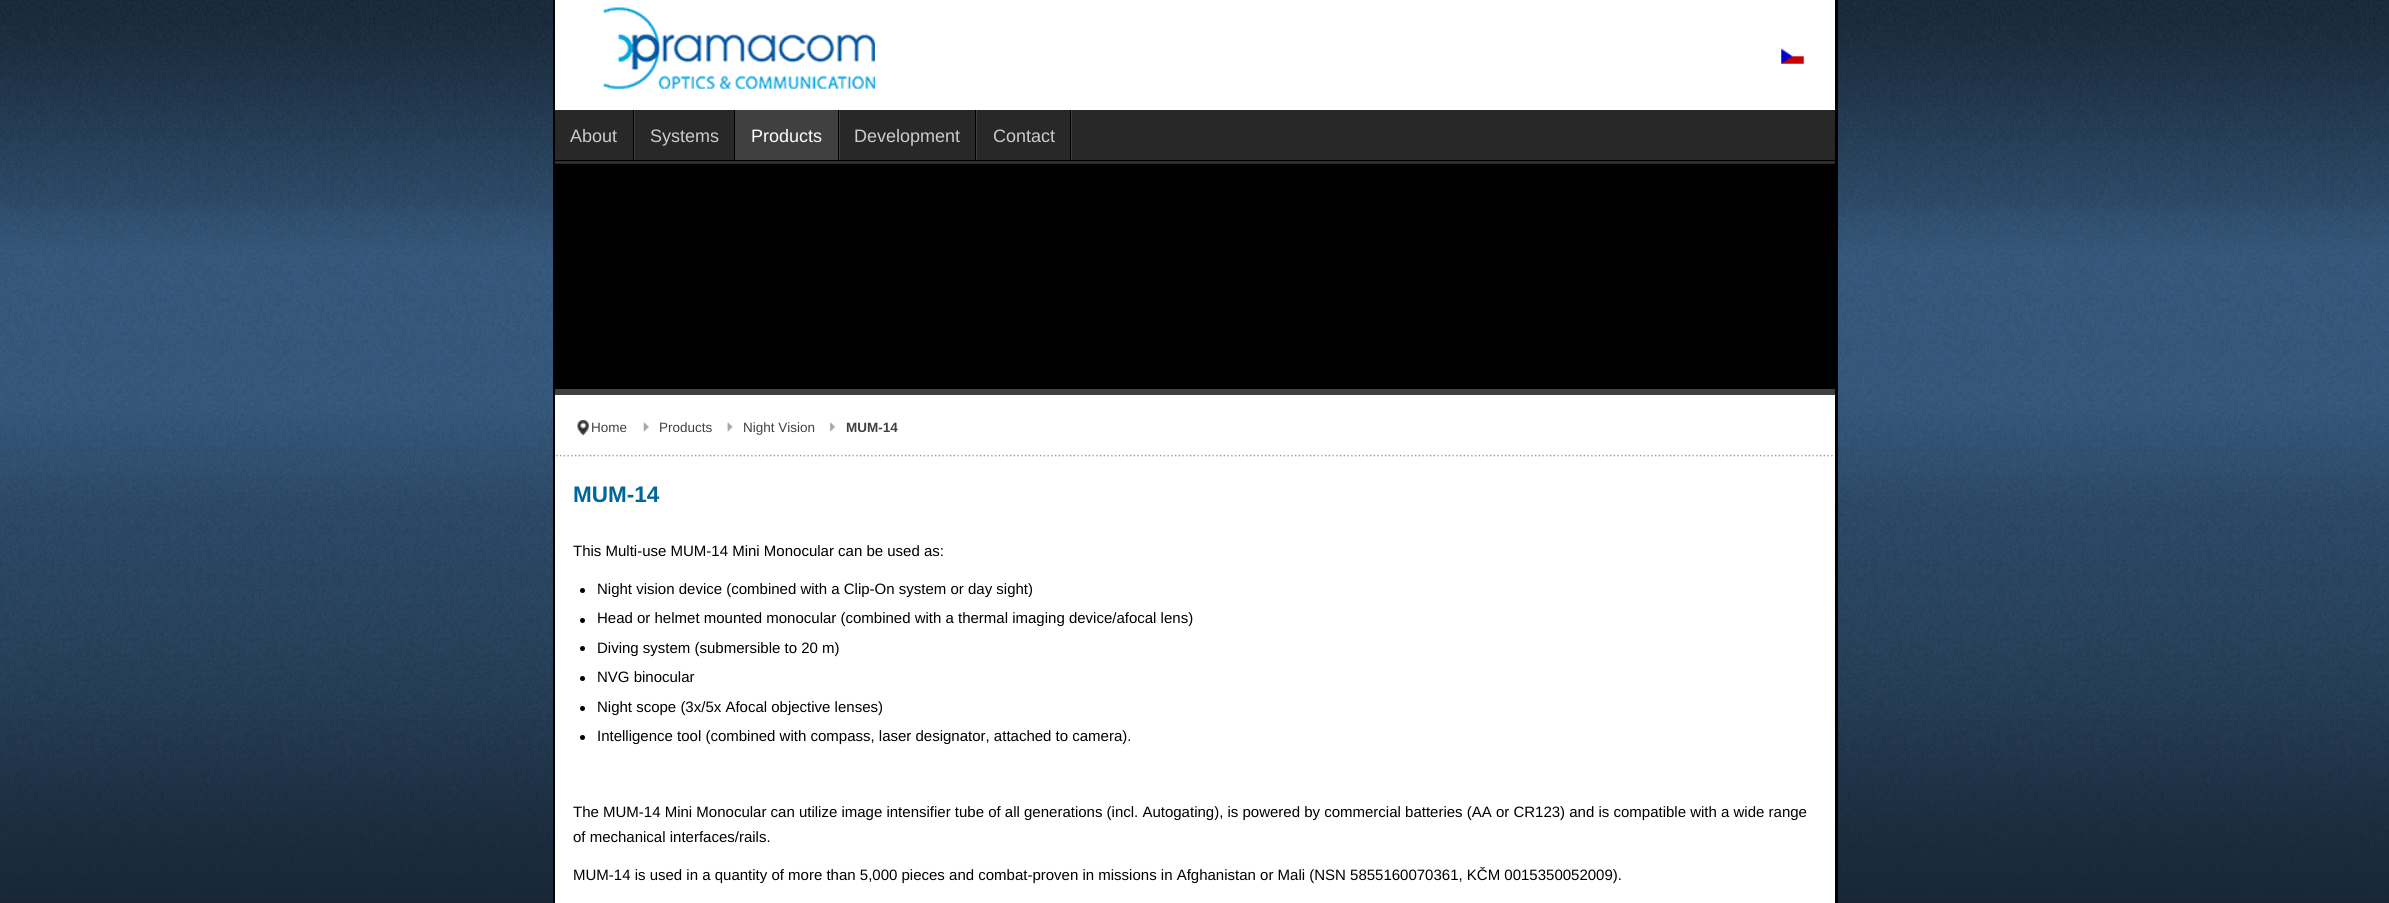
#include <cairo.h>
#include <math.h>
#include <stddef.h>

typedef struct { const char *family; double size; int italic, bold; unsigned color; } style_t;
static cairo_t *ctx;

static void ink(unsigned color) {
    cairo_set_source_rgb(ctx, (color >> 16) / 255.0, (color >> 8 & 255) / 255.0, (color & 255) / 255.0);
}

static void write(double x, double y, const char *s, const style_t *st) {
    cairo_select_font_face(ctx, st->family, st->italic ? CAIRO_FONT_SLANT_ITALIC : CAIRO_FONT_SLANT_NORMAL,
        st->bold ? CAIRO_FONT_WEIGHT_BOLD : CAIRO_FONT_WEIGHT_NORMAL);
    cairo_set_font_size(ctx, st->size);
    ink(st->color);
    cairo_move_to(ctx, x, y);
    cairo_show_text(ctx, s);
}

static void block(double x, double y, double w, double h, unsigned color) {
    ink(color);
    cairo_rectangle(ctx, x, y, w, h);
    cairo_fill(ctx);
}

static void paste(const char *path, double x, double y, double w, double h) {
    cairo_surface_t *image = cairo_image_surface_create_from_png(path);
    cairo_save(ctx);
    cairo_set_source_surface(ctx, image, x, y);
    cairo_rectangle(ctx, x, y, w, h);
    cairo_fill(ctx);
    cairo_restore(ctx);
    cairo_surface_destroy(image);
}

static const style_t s1 = {"Liberation Sans", 18, 0, 0, 0xcccccc};
static const style_t s2 = {"Liberation Sans", 18, 0, 0, 0xffffff};
static const style_t s3 = {"Liberation Sans", 13.5, 0, 0, 0x404040};
static const style_t s4 = {"Liberation Sans", 13.5, 0, 1, 0x404040};
static const style_t s5 = {"Liberation Sans", 22.5, 0, 1, 0x006699};
static const style_t s6 = {"Liberation Sans", 15, 0, 0, 0x000000};

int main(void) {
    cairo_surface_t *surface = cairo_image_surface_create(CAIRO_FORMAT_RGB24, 2389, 903);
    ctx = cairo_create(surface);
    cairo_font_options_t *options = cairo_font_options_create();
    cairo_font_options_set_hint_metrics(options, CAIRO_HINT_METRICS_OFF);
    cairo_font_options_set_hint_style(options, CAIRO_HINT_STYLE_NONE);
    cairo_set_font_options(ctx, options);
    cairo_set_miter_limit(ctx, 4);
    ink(0x172534);
    cairo_paint(ctx);
    paste("pic1.png", 0, 0, 2389, 901);
    block(1835, 0, 3, 903, 0x000000);
    block(553, 0, 2, 903, 0x000000);
    block(555, 0, 1280, 903, 0xffffff);
    paste("pic2.png", 603, 7, 272, 82);
    paste("pic3.png", 1781, 48, 23, 16);
    block(555, 110, 1280, 50, 0x282828);
    block(634, 110, 1, 50, 0x404040);
    block(633, 110, 1, 50, 0x000000);
    write(570, 142, "About", &s1);
    block(735, 110, 103, 50, 0x404040);
    block(734, 110, 1, 50, 0x000000);
    write(650, 142, "Systems", &s1);
    block(839, 110, 1, 50, 0x404040);
    block(838, 110, 1, 50, 0x000000);
    write(751, 142, "Products", &s2);
    block(976, 110, 1, 50, 0x404040);
    block(975, 110, 1, 50, 0x000000);
    write(854, 142, "Development", &s1);
    block(1071, 110, 1, 50, 0x404040);
    block(1070, 110, 1, 50, 0x000000);
    write(993, 142, "Contact", &s1);
    paste("pic4.png", 555, 160, 1280, 4);
    block(555, 389, 1280, 6, 0x404040);
    block(555, 164, 1280, 225, 0x000000);
    paste("pic5.png", 556, 454, 1279, 3);
    paste("pic6.png", 577, 420, 12, 16);
    paste("pic7.png", 643, 422, 6, 10);
    write(591, 432, "Home", &s3);
    paste("pic8.png", 727, 422, 6, 10);
    write(659, 432, "Products", &s3);
    paste("pic9.png", 830, 422, 6, 10);
    write(743, 432, "Night Vision", &s3);
    write(846, 432, "MUM-14", &s4);
    write(573, 502, "MUM-14", &s5);
    write(573, 556, "This Multi-use MUM-14 Mini Monocular can be used as:", &s6);
    cairo_new_path(ctx);
    cairo_arc(ctx, 582.5, 590.5, 2.5, 0, 2 * M_PI);
    cairo_fill(ctx);
    write(597, 594, "Night vision device (combined with a Clip-On system or day sight)", &s6);
    cairo_new_path(ctx);
    cairo_arc(ctx, 582.5, 620.5, 2.5, 0, 2 * M_PI);
    cairo_fill(ctx);
    write(597, 623, "Head or helmet mounted monocular (combined with a thermal imaging device/afocal lens)", &s6);
    cairo_new_path(ctx);
    cairo_arc(ctx, 582.5, 648.5, 2.5, 0, 2 * M_PI);
    cairo_fill(ctx);
    write(597, 653, "Diving system (submersible to 20 m)", &s6);
    cairo_new_path(ctx);
    cairo_arc(ctx, 582.5, 678.5, 2.5, 0, 2 * M_PI);
    cairo_fill(ctx);
    write(597, 682, "NVG binocular", &s6);
    cairo_new_path(ctx);
    cairo_arc(ctx, 582.5, 708.5, 2.5, 0, 2 * M_PI);
    cairo_fill(ctx);
    write(597, 712, "Night scope (3x/5x Afocal objective lenses)", &s6);
    cairo_new_path(ctx);
    cairo_arc(ctx, 582.5, 737.5, 2.5, 0, 2 * M_PI);
    cairo_fill(ctx);
    write(597, 741, "Intelligence tool (combined with compass, laser designator, attached to camera).", &s6);
    write(573, 817, "The MUM-14 Mini Monocular can utilize image intensifier tube of all generations (incl. Autogating), is powered by commercial batteries (AA or CR123) and is compatible with a wide range", &s6);
    write(573, 842, "of mechanical interfaces/rails.", &s6);
    write(573, 880, "MUM-14 is used in a quantity of more than 5,000 pieces and combat-proven in missions in Afghanistan or Mali (NSN 5855160070361, KČM 0015350052009).", &s6);
    cairo_surface_write_to_png(surface, "screenshot.png");
    cairo_font_options_destroy(options);
    cairo_destroy(ctx);
    cairo_surface_destroy(surface);
    return 0;
}
